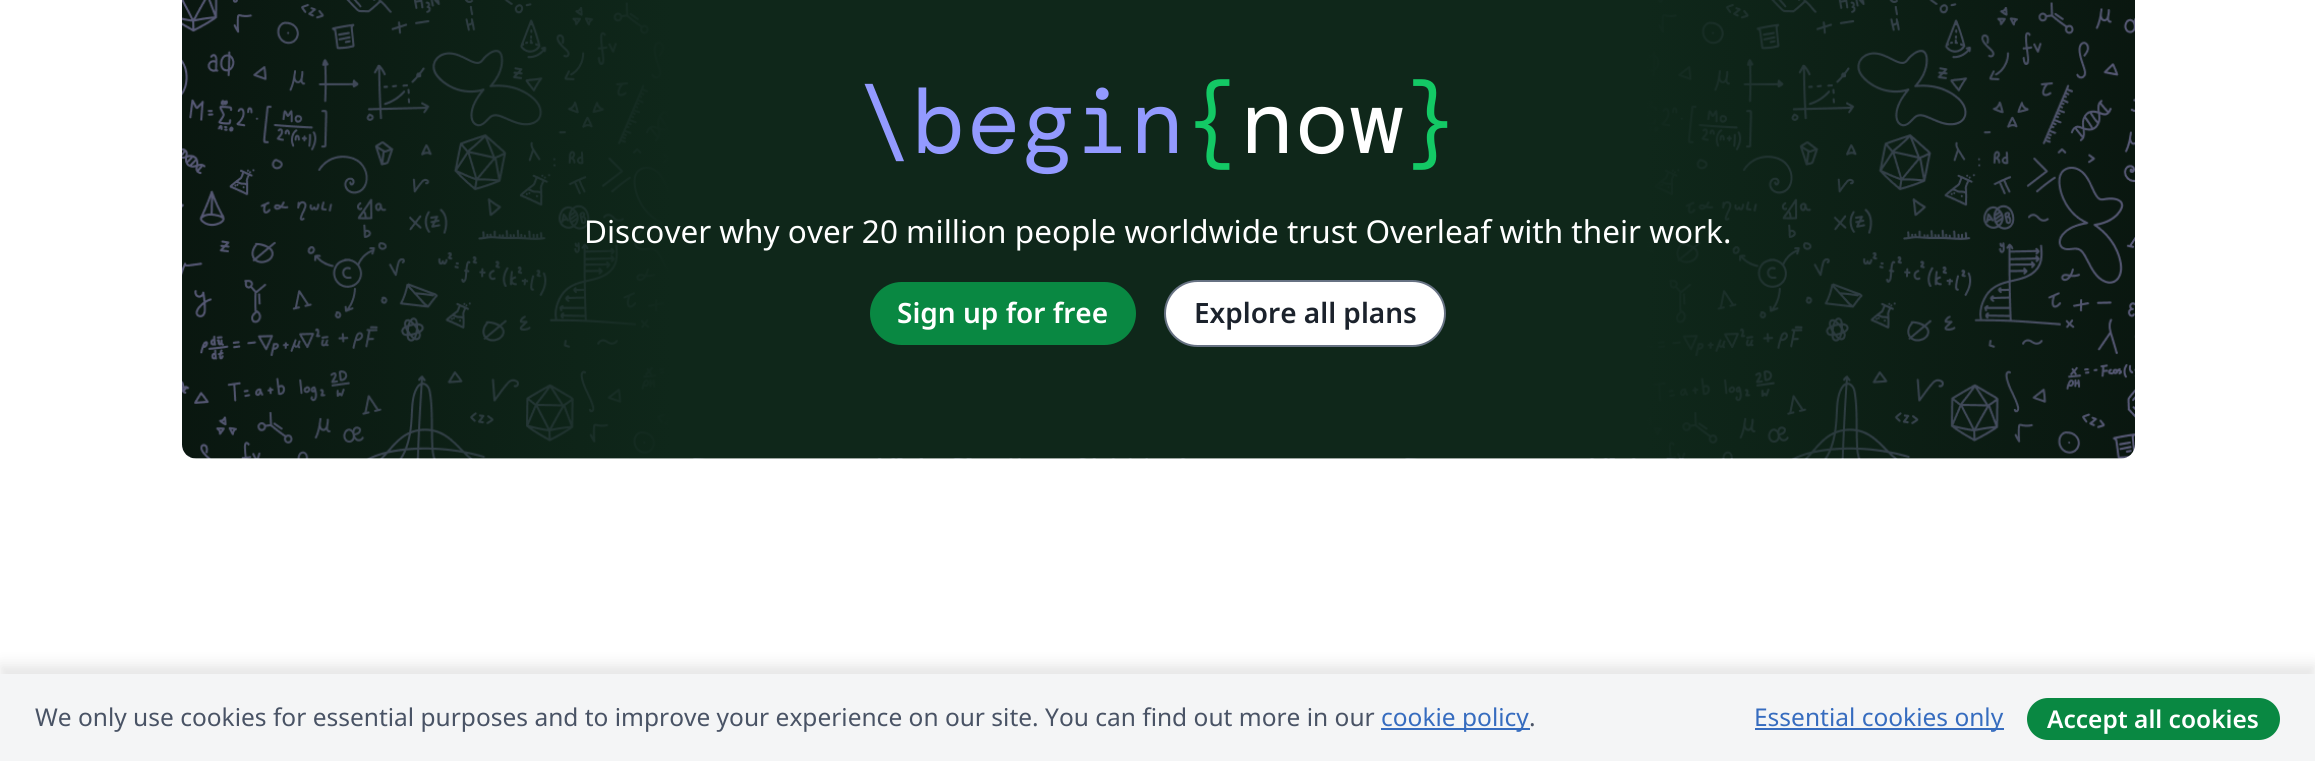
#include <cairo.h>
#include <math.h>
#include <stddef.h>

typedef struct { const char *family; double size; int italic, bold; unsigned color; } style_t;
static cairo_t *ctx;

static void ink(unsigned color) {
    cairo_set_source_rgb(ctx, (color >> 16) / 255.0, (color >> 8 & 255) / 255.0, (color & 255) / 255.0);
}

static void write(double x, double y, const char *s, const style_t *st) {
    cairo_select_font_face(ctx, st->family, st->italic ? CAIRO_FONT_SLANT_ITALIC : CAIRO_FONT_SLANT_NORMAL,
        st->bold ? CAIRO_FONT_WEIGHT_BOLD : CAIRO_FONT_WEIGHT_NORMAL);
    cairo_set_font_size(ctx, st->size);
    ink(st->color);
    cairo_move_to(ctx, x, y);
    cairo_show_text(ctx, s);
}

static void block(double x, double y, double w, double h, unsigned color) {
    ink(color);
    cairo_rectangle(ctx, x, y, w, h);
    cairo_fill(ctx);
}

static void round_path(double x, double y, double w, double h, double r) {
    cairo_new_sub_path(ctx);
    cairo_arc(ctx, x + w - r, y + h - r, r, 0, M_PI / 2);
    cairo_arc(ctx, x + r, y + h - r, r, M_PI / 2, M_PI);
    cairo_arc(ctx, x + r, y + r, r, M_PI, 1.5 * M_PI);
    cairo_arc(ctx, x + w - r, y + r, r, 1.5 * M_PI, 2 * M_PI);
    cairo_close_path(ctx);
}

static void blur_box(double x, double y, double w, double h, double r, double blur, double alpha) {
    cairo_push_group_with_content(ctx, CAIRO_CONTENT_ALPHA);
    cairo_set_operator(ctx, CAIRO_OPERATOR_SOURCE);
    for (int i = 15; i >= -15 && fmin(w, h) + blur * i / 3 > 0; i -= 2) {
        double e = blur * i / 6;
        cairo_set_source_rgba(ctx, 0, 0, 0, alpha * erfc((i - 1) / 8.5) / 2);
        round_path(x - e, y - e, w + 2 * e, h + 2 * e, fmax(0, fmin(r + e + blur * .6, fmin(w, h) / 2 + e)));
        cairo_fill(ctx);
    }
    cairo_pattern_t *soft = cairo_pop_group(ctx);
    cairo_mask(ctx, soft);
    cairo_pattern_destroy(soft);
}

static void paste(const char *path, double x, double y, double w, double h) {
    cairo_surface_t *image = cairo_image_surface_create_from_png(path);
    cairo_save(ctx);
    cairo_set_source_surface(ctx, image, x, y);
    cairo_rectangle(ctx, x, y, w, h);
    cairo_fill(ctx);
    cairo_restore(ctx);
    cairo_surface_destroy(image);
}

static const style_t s1 = {"DM Mono", 91, 0, 0, 0x939aff};
static const style_t s2 = {"DM Mono", 91, 0, 0, 0x13c965};
static const style_t s3 = {"DM Mono", 91, 0, 0, 0xffffff};
static const style_t s4 = {"Noto Sans", 31.5, 0, 0, 0xffffff};
static const style_t s5 = {"Noto Sans SemiBold", 28, 0, 0, 0xffffff};
static const style_t s6 = {"Noto Sans SemiBold", 28, 0, 0, 0x1b222c};
static const style_t s7 = {"Noto Sans", 24.5, 0, 0, 0x495365};
static const style_t s8 = {"Noto Sans", 24.5, 0, 0, 0x366cbf};
static const style_t s9 = {"Noto Sans SemiBold", 24.5, 0, 0, 0xffffff};

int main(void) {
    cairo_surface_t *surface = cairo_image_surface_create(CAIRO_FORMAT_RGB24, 2315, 761);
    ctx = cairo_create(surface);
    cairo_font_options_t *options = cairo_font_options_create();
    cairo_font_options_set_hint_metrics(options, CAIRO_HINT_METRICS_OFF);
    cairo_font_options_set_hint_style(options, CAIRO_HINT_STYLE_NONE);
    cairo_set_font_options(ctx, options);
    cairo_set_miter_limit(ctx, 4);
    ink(0xffffff);
    cairo_paint(ctx);
    ink(0xf4f5f6);
    round_path(182, -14, 1953, 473, 14);
    cairo_fill(ctx);
    paste("pic1.png", 182, 0, 1953, 459);
    write(857, 153, "\\begin", &s1);
    write(1185, 153, "{", &s2);
    write(1240, 153, "now", &s3);
    write(1403, 153, "}", &s2);
    write(584, 243, "Discover why over 20 million people worldwide trust Overleaf with their work.", &s4);
    ink(0x098842);
    round_path(870, 282, 266, 63, 31.5);
    cairo_fill(ctx);
    write(897, 323, "Sign up for free", &s5);
    round_path(1165, 281, 280, 65, 32.5);
    cairo_fill_preserve(ctx);
    ink(0x677283);
    cairo_stroke(ctx);
    write(1194, 323, "Explore all plans", &s6);
    ink(0x000000);
    blur_box(0, 665, 2315, 88, 0, 7, 0.1);
    block(0, 674, 2315, 87, 0xf4f5f6);
    write(35, 726, "We only use cookies for essential purposes and to improve your experience on our site. You can find out more in our", &s7);
    block(1381, 728, 149, 2, 0x366cbf);
    write(1381, 726, "cookie policy", &s8);
    write(1529, 726, ".", &s7);
    block(1755, 728, 249, 2, 0x366cbf);
    write(1754, 726, "Essential cookies only", &s8);
    ink(0x098842);
    round_path(2027, 698, 253, 42, 21);
    cairo_fill(ctx);
    write(2047, 728, "Accept all cookies", &s9);
    cairo_surface_write_to_png(surface, "screenshot.png");
    cairo_font_options_destroy(options);
    cairo_destroy(ctx);
    cairo_surface_destroy(surface);
    return 0;
}
